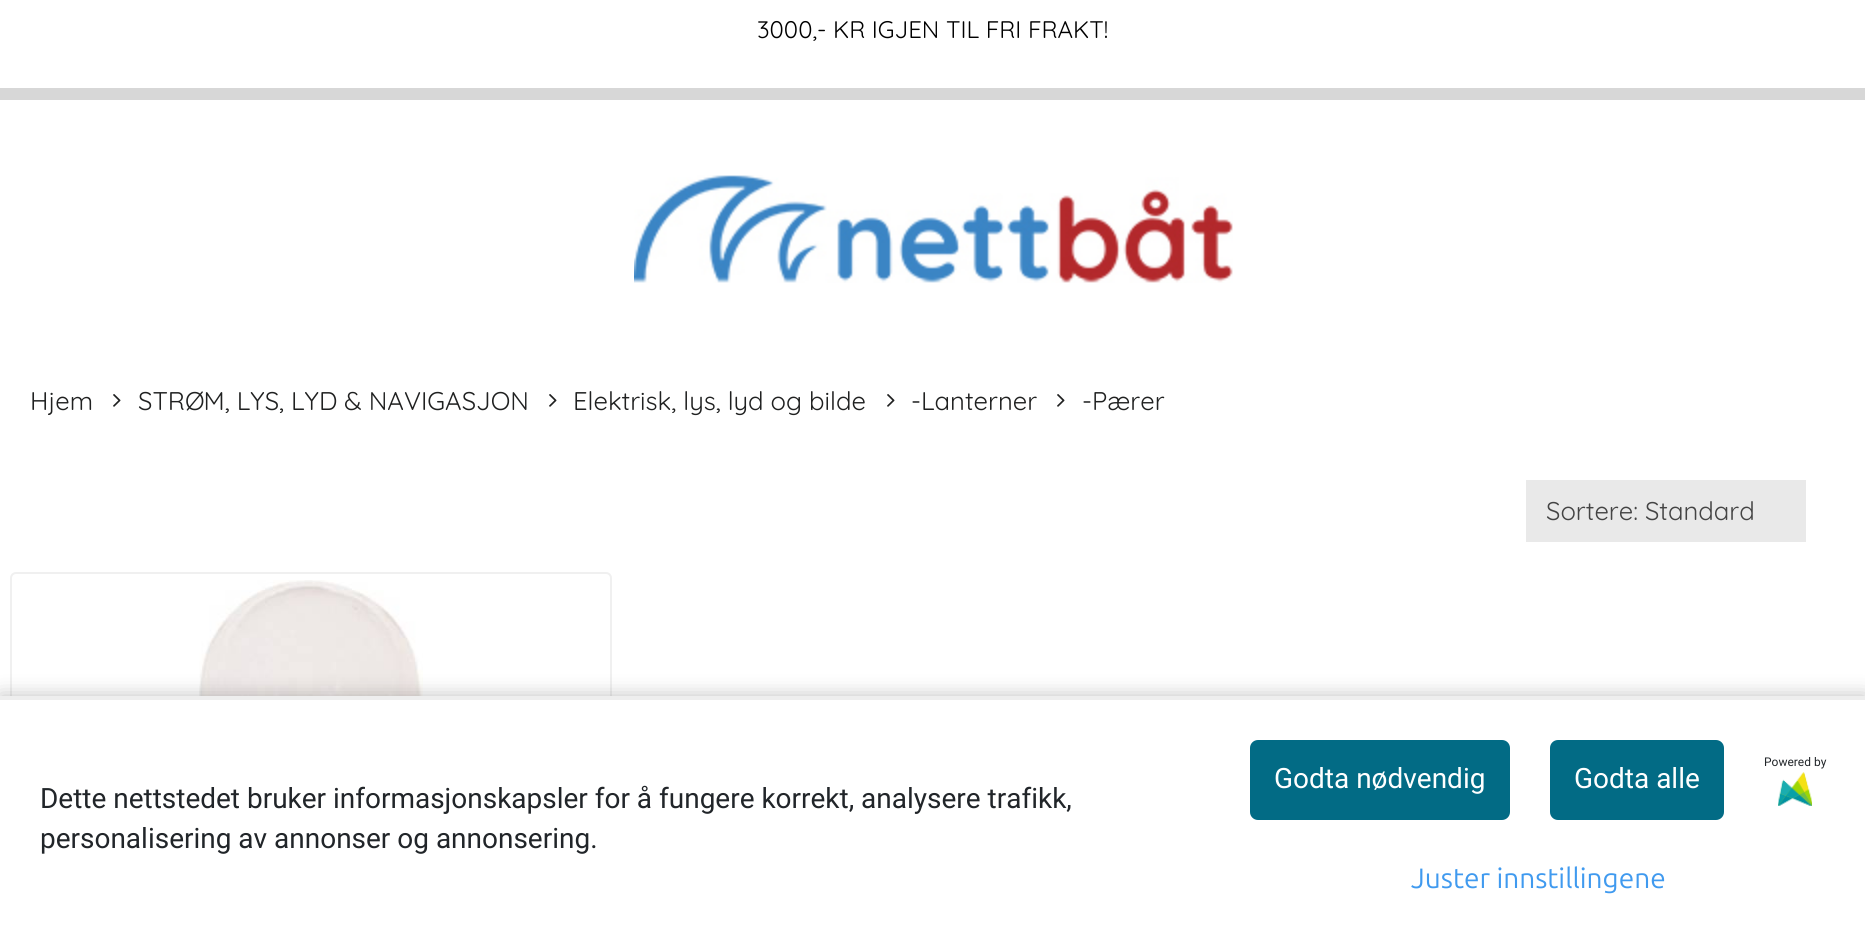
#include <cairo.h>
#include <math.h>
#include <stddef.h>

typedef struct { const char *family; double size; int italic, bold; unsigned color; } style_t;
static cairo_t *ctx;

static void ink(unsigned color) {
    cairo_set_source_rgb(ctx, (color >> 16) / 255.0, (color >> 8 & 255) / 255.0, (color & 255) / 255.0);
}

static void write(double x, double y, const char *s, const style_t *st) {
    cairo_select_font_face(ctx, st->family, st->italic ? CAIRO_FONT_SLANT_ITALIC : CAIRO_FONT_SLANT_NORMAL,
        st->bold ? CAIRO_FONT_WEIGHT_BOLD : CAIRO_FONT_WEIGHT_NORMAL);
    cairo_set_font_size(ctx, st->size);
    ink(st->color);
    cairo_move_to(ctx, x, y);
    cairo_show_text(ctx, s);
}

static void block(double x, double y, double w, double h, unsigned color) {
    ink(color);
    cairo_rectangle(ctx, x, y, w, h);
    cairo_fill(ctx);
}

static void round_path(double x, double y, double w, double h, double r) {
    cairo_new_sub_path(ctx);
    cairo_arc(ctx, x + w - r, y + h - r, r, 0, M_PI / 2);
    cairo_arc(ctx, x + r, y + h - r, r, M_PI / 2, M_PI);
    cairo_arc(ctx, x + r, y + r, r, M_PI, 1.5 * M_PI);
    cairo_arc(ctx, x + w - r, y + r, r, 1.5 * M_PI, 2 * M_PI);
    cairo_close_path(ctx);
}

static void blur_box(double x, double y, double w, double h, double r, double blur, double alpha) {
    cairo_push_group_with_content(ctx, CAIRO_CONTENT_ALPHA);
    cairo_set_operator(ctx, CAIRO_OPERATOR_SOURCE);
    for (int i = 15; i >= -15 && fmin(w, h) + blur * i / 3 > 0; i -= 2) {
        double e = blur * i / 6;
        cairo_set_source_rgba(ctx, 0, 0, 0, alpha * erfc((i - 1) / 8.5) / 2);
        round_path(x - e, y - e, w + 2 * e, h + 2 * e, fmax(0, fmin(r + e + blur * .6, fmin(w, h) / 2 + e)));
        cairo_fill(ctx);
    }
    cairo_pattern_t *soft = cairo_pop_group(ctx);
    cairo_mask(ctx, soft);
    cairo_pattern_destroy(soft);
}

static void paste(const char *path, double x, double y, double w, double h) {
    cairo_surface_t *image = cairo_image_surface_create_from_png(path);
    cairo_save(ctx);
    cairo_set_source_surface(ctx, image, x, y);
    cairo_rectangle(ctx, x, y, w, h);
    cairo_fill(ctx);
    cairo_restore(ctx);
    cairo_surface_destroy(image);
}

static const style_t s1 = {"Quicksand", 24, 0, 0, 0x000000};
static const style_t s2 = {"Quicksand", 25.6, 0, 0, 0x202121};
static const style_t s3 = {"Quicksand", 25.6, 0, 0, 0x444444};
static const style_t s4 = {"Roboto", 28, 0, 0, 0x212529};
static const style_t s5 = {"Roboto", 12, 0, 0, 0x212529};
static const style_t s6 = {"Roboto", 28, 0, 0, 0xffffff};
static const style_t s7 = {"Ubuntu", 28, 0, 0, 0x409aef};

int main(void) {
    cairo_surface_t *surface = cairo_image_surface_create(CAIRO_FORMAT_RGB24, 1865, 939);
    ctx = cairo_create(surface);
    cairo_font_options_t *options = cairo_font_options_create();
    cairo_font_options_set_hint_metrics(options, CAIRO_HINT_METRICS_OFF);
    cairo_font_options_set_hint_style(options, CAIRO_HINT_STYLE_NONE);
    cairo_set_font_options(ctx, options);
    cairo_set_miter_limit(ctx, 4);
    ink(0xffffff);
    cairo_paint(ctx);
    write(757, 38, "3000,- KR IGJEN TIL FRI FRAKT!", &s1);
    block(0, 88, 1865, 12, 0xd7d7d7);
    paste("pic1.png", 634, 175, 599, 108);
    write(30, 410, "Hjem", &s2);
    paste("pic2.png", 113, 394, 8, 13);
    write(138, 410, "STRØM, LYS, LYD & NAVIGASJON", &s2);
    paste("pic2.png", 549, 394, 8, 13);
    write(573, 410, "Elektrisk, lys, lyd og bilde", &s2);
    paste("pic2.png", 887, 394, 8, 13);
    write(911, 410, "-Lanterner", &s2);
    paste("pic2.png", 1057, 394, 8, 13);
    write(1082, 410, "-Pærer", &s2);
    block(1526, 480, 280, 62, 0xe9e9e9);
    write(1546, 520, "Sortere: Standard", &s3);
    round_path(11, 573, 600, 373, 5);
    ink(0xf0f0f0);
    cairo_stroke(ctx);
    paste("pic3.png", 199, 580, 224, 116);
    ink(0x000000);
    blur_box(0, 696, 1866, 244, 0, 10, 0.25);
    block(0, 700, 1865, 239, 0xffffff);
    block(0, 696, 1865, 4, 0xeeeeee);
    write(40, 808, "Dette nettstedet bruker informasjonskapsler for å fungere korrekt, analysere trafikk,", &s4);
    write(40, 848, "personalisering av annonser og annonsering.", &s4);
    write(1764, 766, "Powered by", &s5);
    paste("pic4.png", 1778, 772, 34, 34);
    ink(0x026b85);
    round_path(1250, 740, 260, 80, 8);
    cairo_fill(ctx);
    write(1274, 788, "Godta nødvendig", &s6);
    ink(0x026b85);
    round_path(1550, 740, 174, 80, 8);
    cairo_fill(ctx);
    write(1574, 788, "Godta alle", &s6);
    write(1411, 888, "Juster innstillingene", &s7);
    cairo_surface_write_to_png(surface, "screenshot.png");
    cairo_font_options_destroy(options);
    cairo_destroy(ctx);
    cairo_surface_destroy(surface);
    return 0;
}
